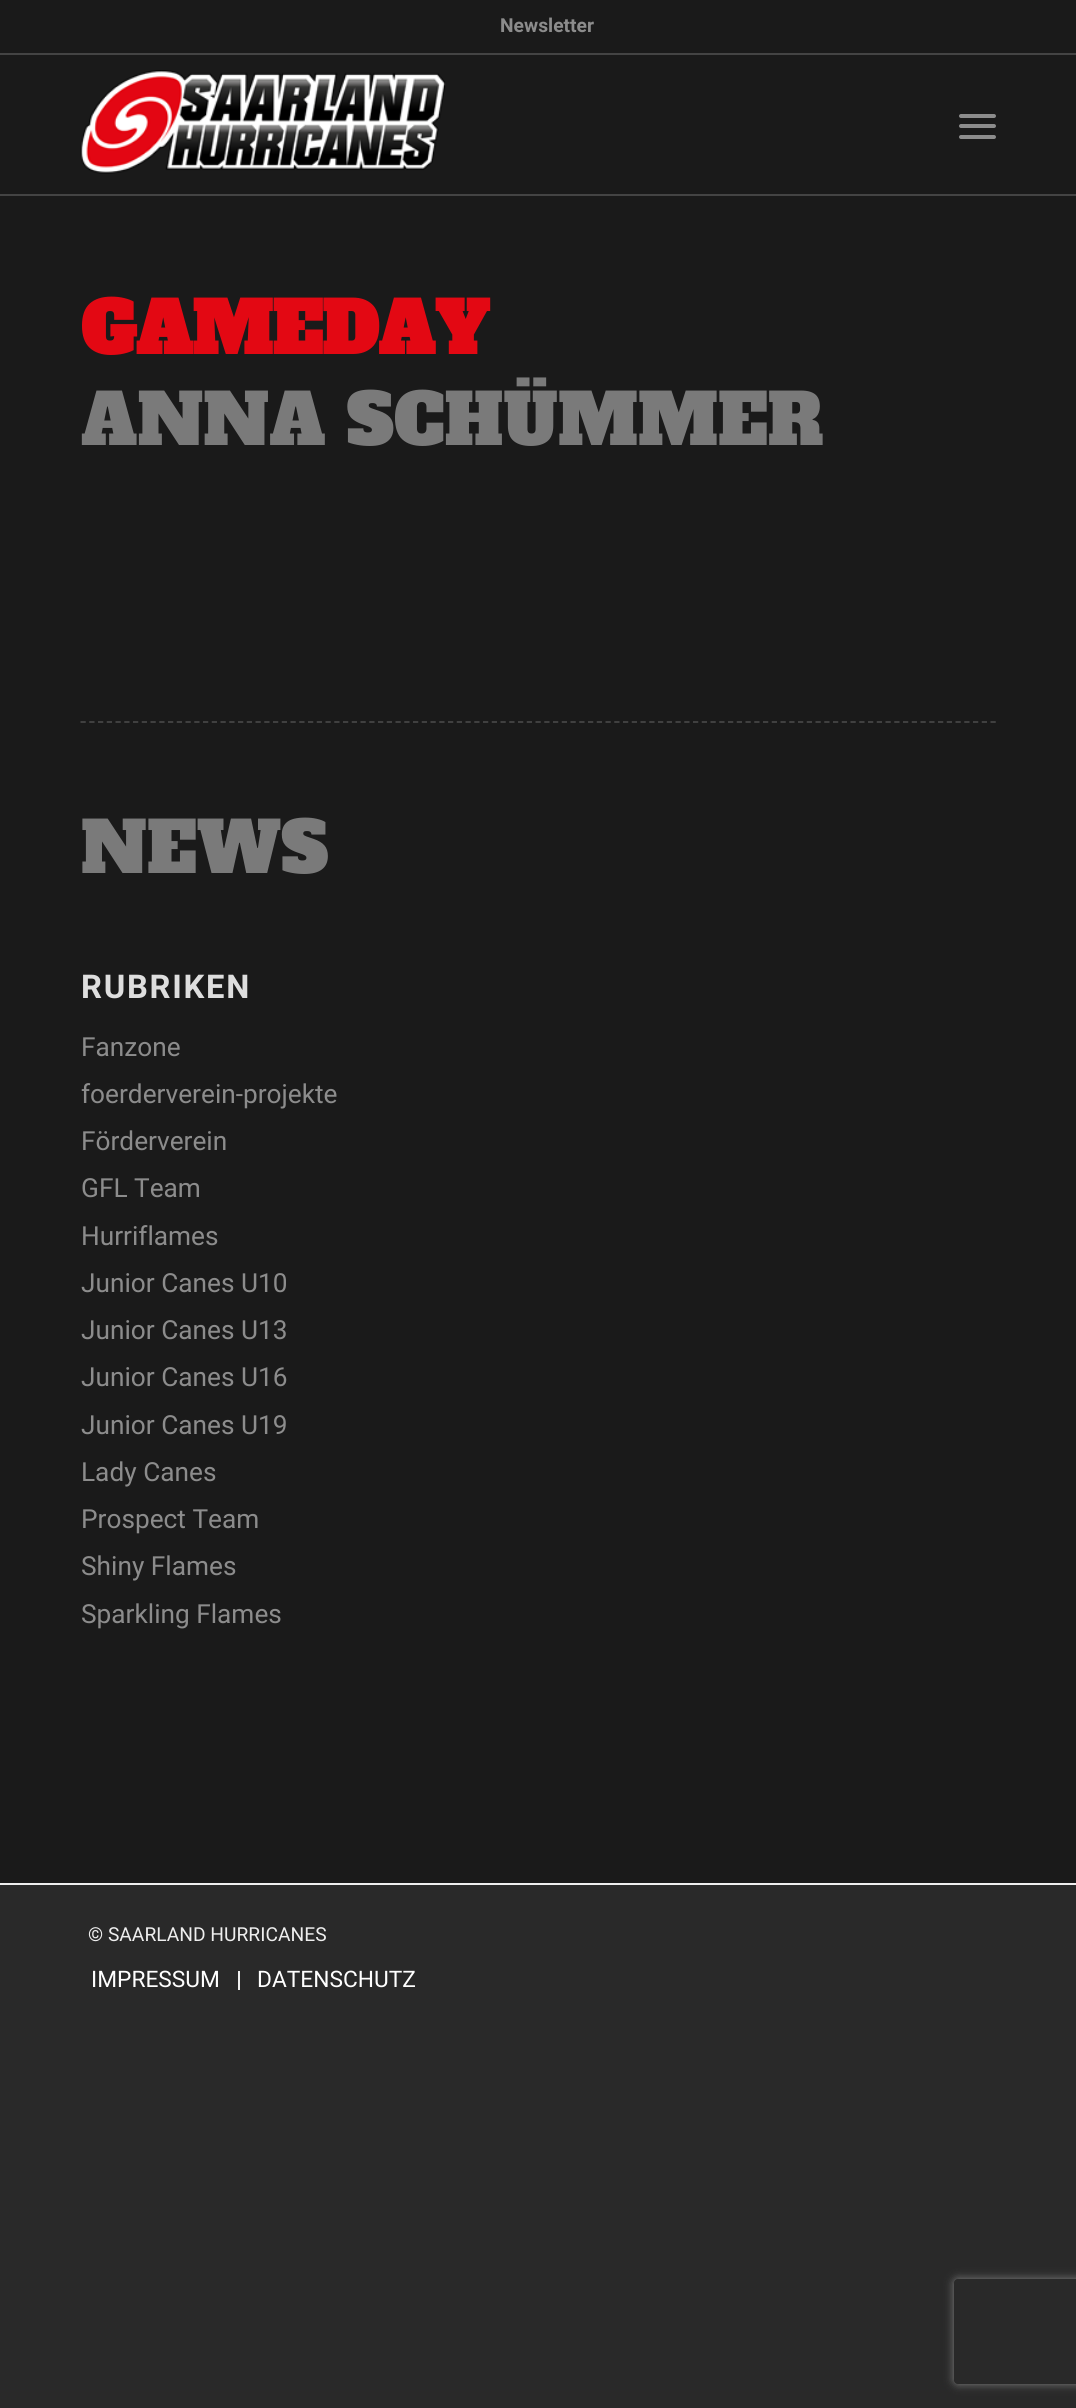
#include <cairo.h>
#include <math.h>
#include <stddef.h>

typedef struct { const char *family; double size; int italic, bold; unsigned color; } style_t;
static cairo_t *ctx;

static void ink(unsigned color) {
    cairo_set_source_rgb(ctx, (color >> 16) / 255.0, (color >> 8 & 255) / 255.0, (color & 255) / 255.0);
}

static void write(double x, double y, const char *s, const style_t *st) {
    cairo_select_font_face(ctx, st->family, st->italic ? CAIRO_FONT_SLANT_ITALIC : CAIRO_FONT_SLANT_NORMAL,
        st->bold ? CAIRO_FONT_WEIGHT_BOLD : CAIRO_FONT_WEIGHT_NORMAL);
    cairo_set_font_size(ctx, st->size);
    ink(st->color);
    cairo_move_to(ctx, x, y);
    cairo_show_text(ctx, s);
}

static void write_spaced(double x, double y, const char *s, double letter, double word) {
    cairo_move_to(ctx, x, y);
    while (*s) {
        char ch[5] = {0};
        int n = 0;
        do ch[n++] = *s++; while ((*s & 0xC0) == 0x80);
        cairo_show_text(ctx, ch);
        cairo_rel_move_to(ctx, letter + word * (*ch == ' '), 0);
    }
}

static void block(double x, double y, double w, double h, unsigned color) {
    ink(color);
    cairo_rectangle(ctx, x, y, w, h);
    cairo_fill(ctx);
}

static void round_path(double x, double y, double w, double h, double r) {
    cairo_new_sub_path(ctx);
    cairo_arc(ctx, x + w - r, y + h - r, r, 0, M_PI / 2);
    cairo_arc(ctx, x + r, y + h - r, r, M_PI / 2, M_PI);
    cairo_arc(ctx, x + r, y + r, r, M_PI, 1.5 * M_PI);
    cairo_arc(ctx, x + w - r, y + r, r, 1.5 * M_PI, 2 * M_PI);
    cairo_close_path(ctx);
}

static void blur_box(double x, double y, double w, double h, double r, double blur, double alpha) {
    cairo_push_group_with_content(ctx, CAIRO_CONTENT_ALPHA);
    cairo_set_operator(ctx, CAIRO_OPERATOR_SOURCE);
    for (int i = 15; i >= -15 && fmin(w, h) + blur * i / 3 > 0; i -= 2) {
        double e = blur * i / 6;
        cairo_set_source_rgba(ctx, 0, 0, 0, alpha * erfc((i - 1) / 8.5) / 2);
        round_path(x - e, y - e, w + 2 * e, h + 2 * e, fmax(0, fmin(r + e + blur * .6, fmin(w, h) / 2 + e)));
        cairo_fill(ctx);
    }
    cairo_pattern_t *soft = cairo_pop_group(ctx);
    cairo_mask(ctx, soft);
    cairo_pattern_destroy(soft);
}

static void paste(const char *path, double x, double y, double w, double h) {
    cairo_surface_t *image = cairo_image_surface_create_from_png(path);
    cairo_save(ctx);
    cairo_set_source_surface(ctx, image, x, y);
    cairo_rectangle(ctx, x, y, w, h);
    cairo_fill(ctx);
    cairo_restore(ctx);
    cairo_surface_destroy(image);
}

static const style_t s1 = {"Roboto", 19.25, 0, 1, 0x8c8c8c};
static const style_t s2 = {"Alfa Slab One", 70, 0, 1, 0xe30813};
static const style_t s3 = {"Alfa Slab One", 70, 0, 0, 0x7a7a7a};
static const style_t s4 = {"Roboto", 26.25, 0, 0, 0x8c8c8c};
static const style_t s5 = {"Roboto", 19.25, 0, 0, 0xeeeeee};
static const style_t s6 = {"Roboto", 22.75, 0, 0, 0xffffff};

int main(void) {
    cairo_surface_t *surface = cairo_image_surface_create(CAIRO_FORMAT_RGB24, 1076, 2408);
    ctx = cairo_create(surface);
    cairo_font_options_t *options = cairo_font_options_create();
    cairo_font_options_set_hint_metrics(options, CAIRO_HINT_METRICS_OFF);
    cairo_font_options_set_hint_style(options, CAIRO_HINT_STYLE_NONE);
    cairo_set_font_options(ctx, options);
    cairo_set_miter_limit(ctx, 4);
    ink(0x292929);
    cairo_paint(ctx);
    block(0, 0, 1076, 53, 0x1a1a1a);
    block(0, 53, 1076, 2, 0x444444);
    write(500, 32, "Newsletter", &s1);
    block(0, 55, 1076, 139, 0x1a1a1a);
    block(0, 194, 1076, 2, 0x444444);
    paste("pic1.png", 80, 70, 366, 104);
    ink(0x8c8c8c);
    round_path(959, 124, 37, 4, 2);
    cairo_fill(ctx);
    round_path(959, 114, 37, 4, 2);
    cairo_fill(ctx);
    round_path(959, 135, 37, 4, 2);
    cairo_fill(ctx);
    block(0, 196, 1076, 1687, 0x1a1a1a);
    write(81, 354, "GAMEDAY", &s2);
    write(81, 445, "ANNA SCHÜMMER", &s3);
    cairo_new_path(ctx);
    cairo_move_to(ctx, 80.5, 722);
    cairo_line_to(ctx, 996, 722);
    ink(0x444444);
    cairo_set_line_width(ctx, 1.8);
    cairo_set_dash(ctx, (double[]){5.25, 3.5}, 2, 0);
    cairo_stroke(ctx);
    write(81, 873, "NEWS", &s3);
    cairo_select_font_face(ctx, "Roboto", CAIRO_FONT_SLANT_NORMAL, CAIRO_FONT_WEIGHT_BOLD);
    cairo_set_font_size(ctx, 32.75);
    ink(0xdedede);
    write_spaced(81, 998, "RUBRIKEN", 1.75, 0);
    write(81, 1056, "Fanzone", &s4);
    write(81, 1103, "foerderverein-projekte", &s4);
    write(81, 1150, "Förderverein", &s4);
    write(81, 1197, "GFL Team", &s4);
    write(81, 1245, "Hurriflames", &s4);
    write(81, 1292, "Junior Canes U10", &s4);
    write(81, 1339, "Junior Canes U13", &s4);
    write(81, 1386, "Junior Canes U16", &s4);
    write(81, 1434, "Junior Canes U19", &s4);
    write(81, 1481, "Lady Canes", &s4);
    write(81, 1528, "Prospect Team", &s4);
    write(81, 1575, "Shiny Flames", &s4);
    write(81, 1623, "Sparkling Flames", &s4);
    block(0, 1883, 1076, 2, 0xeeeeee);
    write(88, 1941, "© SAARLAND HURRICANES", &s5);
    write(91, 1987, "IMPRESSUM", &s6);
    block(238, 1971, 2, 19, 0xeeeeee);
    write(257, 1987, "DATENSCHUTZ", &s6);
    cairo_save(ctx);
    cairo_set_fill_rule(ctx, CAIRO_FILL_RULE_EVEN_ODD);
    cairo_new_path(ctx);
    cairo_move_to(ctx, 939, 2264);
    cairo_line_to(ctx, 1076, 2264);
    cairo_line_to(ctx, 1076, 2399);
    cairo_line_to(ctx, 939, 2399);
    cairo_close_path(ctx);
    cairo_move_to(ctx, 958, 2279);
    cairo_line_to(ctx, 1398, 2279);
    cairo_curve_to(ctx, 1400, 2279, 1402, 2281, 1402, 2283);
    cairo_line_to(ctx, 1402, 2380);
    cairo_curve_to(ctx, 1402, 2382, 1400, 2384, 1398, 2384);
    cairo_line_to(ctx, 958, 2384);
    cairo_curve_to(ctx, 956, 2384, 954, 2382, 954, 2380);
    cairo_line_to(ctx, 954, 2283);
    cairo_curve_to(ctx, 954, 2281, 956, 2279, 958, 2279);
    cairo_close_path(ctx);
    cairo_clip(ctx);
    ink(0x808080);
    blur_box(954, 2279, 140, 105, 4, 4.5, 1);
    cairo_restore(ctx);
    cairo_surface_write_to_png(surface, "screenshot.png");
    cairo_font_options_destroy(options);
    cairo_destroy(ctx);
    cairo_surface_destroy(surface);
    return 0;
}
